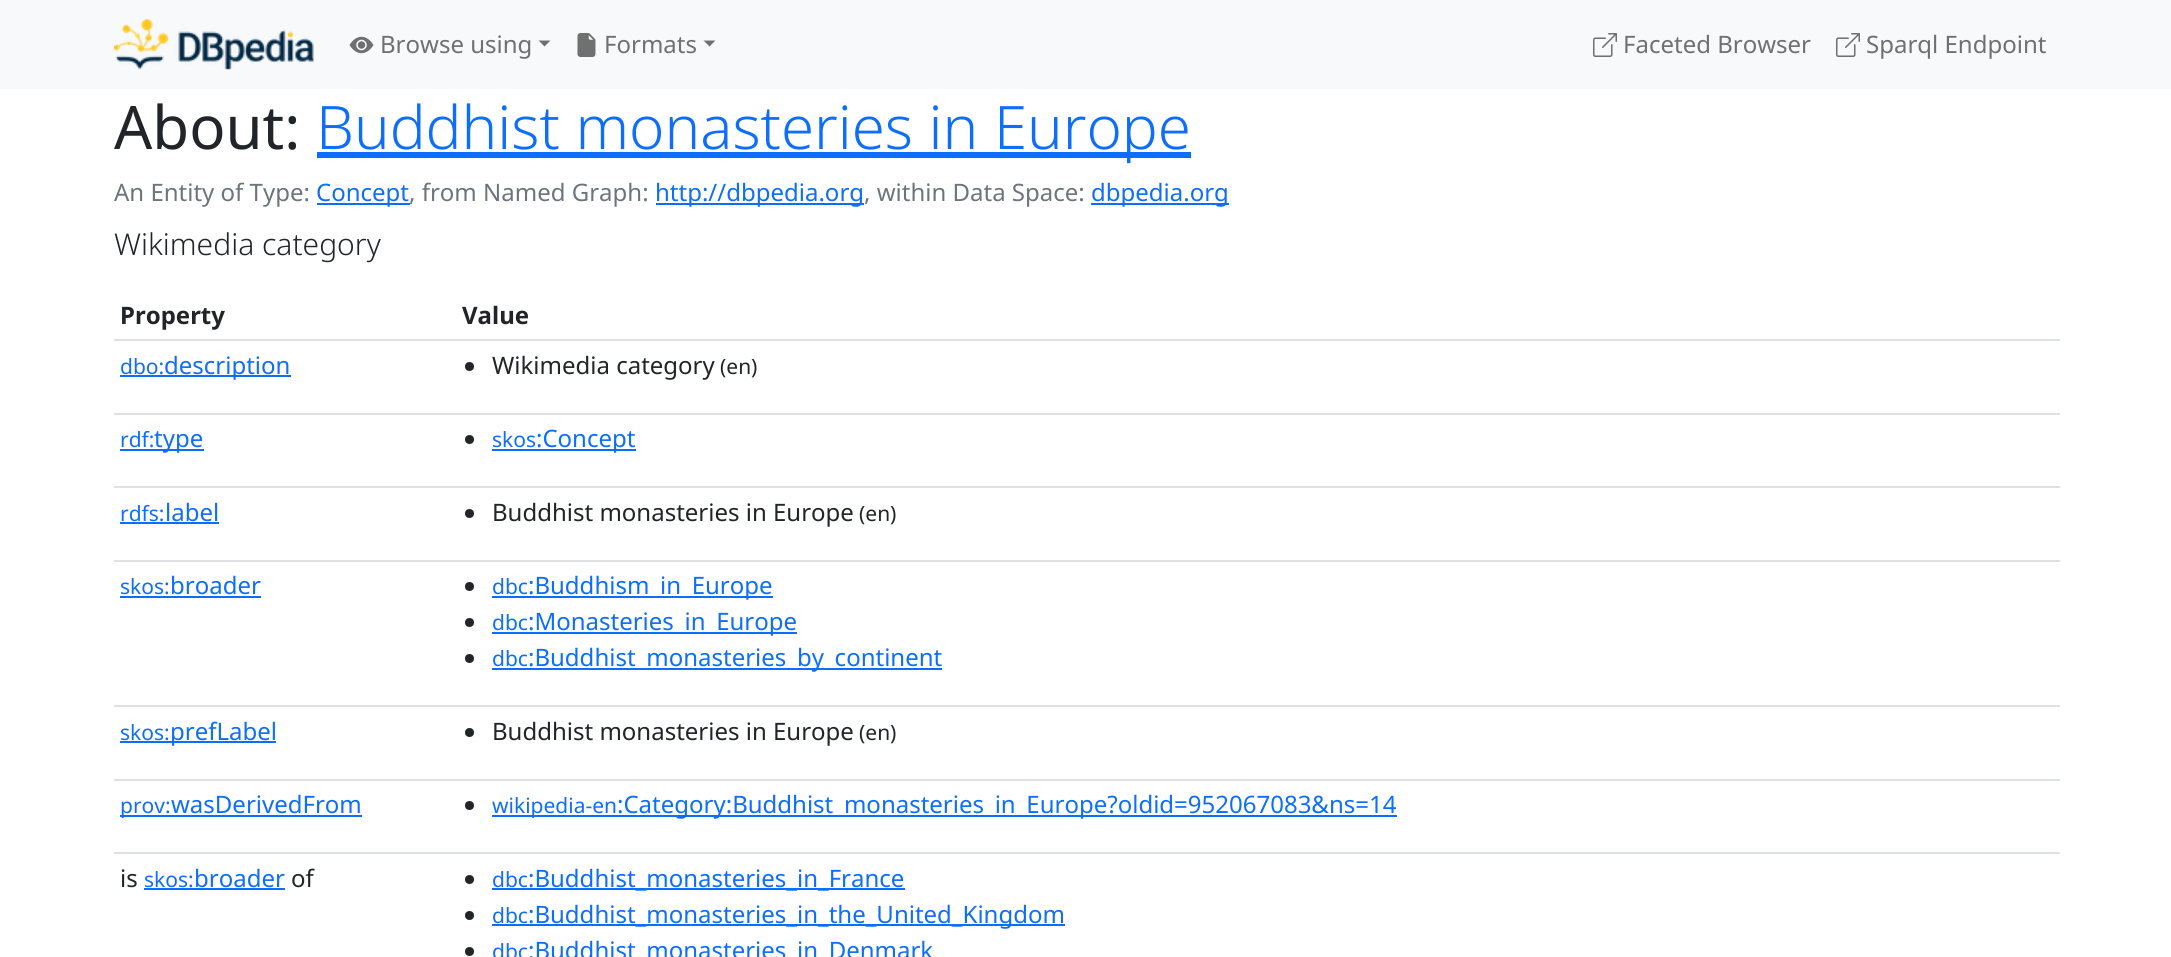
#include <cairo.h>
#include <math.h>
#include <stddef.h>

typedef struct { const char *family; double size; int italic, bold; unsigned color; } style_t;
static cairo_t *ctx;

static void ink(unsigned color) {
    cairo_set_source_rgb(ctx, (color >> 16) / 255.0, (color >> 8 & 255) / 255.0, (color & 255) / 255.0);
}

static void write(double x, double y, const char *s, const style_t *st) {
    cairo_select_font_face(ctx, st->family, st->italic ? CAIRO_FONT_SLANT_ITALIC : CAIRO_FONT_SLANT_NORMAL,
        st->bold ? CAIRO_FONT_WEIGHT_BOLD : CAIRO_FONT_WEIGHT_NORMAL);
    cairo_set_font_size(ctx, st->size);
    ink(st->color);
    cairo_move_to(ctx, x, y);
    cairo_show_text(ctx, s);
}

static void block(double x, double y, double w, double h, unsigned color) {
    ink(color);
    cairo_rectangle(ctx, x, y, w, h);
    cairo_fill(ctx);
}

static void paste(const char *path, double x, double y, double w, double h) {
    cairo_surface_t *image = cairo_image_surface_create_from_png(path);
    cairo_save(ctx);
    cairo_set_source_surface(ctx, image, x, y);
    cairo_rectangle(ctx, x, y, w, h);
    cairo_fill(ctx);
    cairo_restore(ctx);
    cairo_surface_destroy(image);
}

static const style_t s1 = {"Noto Sans", 24, 0, 0, 0x707071};
static const style_t s2 = {"Noto Sans", 60, 0, 0, 0x212529};
static const style_t s3 = {"Noto Sans Light", 60, 0, 0, 0x0d6efd};
static const style_t s4 = {"Noto Sans", 24, 0, 0, 0x6c757d};
static const style_t s5 = {"Noto Sans", 24, 0, 0, 0x0d6efd};
static const style_t s6 = {"Noto Sans Light", 30, 0, 0, 0x212529};
static const style_t s7 = {"Noto Sans", 24, 0, 1, 0x212529};
static const style_t s8 = {"Noto Sans", 21, 0, 0, 0x0d6efd};
static const style_t s9 = {"Noto Sans", 24, 0, 0, 0x212529};
static const style_t s10 = {"Noto Sans", 21, 0, 0, 0x212529};

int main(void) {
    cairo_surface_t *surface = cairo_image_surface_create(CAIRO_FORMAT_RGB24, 2171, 957);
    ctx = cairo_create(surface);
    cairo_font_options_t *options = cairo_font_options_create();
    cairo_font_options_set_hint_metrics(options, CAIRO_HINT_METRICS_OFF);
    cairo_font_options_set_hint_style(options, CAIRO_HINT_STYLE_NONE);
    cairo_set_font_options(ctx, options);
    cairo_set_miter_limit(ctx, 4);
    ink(0xffffff);
    cairo_paint(ctx);
    block(0, 0, 2171, 89, 0xf8f9fa);
    paste("pic1.png", 114, 19, 200, 51);
    paste("pic2.png", 349, 36, 25, 18);
    write(380, 53, "Browse using", &s1);
    cairo_new_path(ctx);
    cairo_move_to(ctx, 538.5, 40.5);
    cairo_line_to(ctx, 550.5, 40.5);
    cairo_line_to(ctx, 544.5, 46.5);
    cairo_close_path(ctx);
    cairo_fill(ctx);
    paste("pic3.png", 577, 33, 19, 24);
    write(604, 53, "Formats", &s1);
    cairo_new_path(ctx);
    cairo_move_to(ctx, 703.5, 40.5);
    cairo_line_to(ctx, 715.5, 40.5);
    cairo_line_to(ctx, 709.5, 46.5);
    cairo_close_path(ctx);
    cairo_fill(ctx);
    paste("pic4.png", 1593, 33, 24, 24);
    write(1623, 53, "Faceted Browser", &s1);
    paste("pic4.png", 1836, 33, 24, 24);
    write(1866, 53, "Sparql Endpoint", &s1);
    write(114, 149, "About:", &s2);
    block(317, 152, 874, 6, 0x0d6efd);
    write(316, 149, "Buddhist monasteries in Europe", &s3);
    write(114, 201, "An Entity of Type:", &s4);
    block(317, 203, 93, 2, 0x0d6efd);
    write(316, 201, "Concept", &s5);
    write(409, 201, ", from Named Graph:", &s4);
    block(656, 203, 208, 2, 0x0d6efd);
    write(655, 201, "http://dbpedia.org", &s5);
    write(864, 201, ", within Data Space:", &s4);
    block(1091, 203, 138, 2, 0x0d6efd);
    write(1091, 201, "dbpedia.org", &s5);
    write(114, 255, "Wikimedia category", &s6);
    write(120, 324, "Property", &s7);
    block(114, 339, 1946, 2, 0xdee2e6);
    write(462, 324, "Value", &s7);
    write(120, 374, "dbo:", &s8);
    block(120, 375, 171, 2, 0x0d6efd);
    write(164, 374, "description", &s5);
    block(114, 413, 1946, 2, 0xdee2e6);
    ink(0x212529);
    cairo_new_path(ctx);
    cairo_arc(ctx, 469.5, 366.5, 4.5, 0, 2 * M_PI);
    cairo_fill(ctx);
    write(492, 374, "Wikimedia category", &s9);
    write(720, 374, "(en)", &s10);
    write(120, 447, "rdf:", &s8);
    block(120, 449, 84, 2, 0x0d6efd);
    write(154, 447, "type", &s5);
    block(114, 486, 1946, 2, 0xdee2e6);
    ink(0x212529);
    cairo_new_path(ctx);
    cairo_arc(ctx, 469.5, 439.5, 4.5, 0, 2 * M_PI);
    cairo_fill(ctx);
    write(492, 447, "skos", &s8);
    block(492, 449, 144, 2, 0x0d6efd);
    write(536, 447, ":Concept", &s5);
    write(120, 521, "rdfs:", &s8);
    block(120, 522, 99, 2, 0x0d6efd);
    write(165, 521, "label", &s5);
    block(114, 560, 1946, 2, 0xdee2e6);
    ink(0x212529);
    cairo_new_path(ctx);
    cairo_arc(ctx, 469.5, 513.5, 4.5, 0, 2 * M_PI);
    cairo_fill(ctx);
    write(492, 521, "Buddhist monasteries in Europe", &s9);
    write(859, 521, "(en)", &s10);
    write(120, 594, "skos:", &s8);
    block(120, 596, 141, 2, 0x0d6efd);
    write(170, 594, "broader", &s5);
    block(114, 705, 1946, 2, 0xdee2e6);
    ink(0x212529);
    cairo_new_path(ctx);
    cairo_arc(ctx, 469.5, 586.5, 4.5, 0, 2 * M_PI);
    cairo_fill(ctx);
    write(492, 594, "dbc", &s8);
    block(492, 596, 281, 2, 0x0d6efd);
    write(528, 594, ":Buddhism_in_Europe", &s5);
    ink(0x212529);
    cairo_new_path(ctx);
    cairo_arc(ctx, 469.5, 622.5, 4.5, 0, 2 * M_PI);
    cairo_fill(ctx);
    write(492, 630, "dbc", &s8);
    block(492, 632, 305, 2, 0x0d6efd);
    write(528, 630, ":Monasteries_in_Europe", &s5);
    ink(0x212529);
    cairo_new_path(ctx);
    cairo_arc(ctx, 469.5, 658.5, 4.5, 0, 2 * M_PI);
    cairo_fill(ctx);
    write(492, 666, "dbc", &s8);
    block(492, 668, 450, 2, 0x0d6efd);
    write(528, 666, ":Buddhist_monasteries_by_continent", &s5);
    write(120, 740, "skos:", &s8);
    block(120, 741, 156, 2, 0x0d6efd);
    write(170, 740, "prefLabel", &s5);
    block(114, 779, 1946, 2, 0xdee2e6);
    ink(0x212529);
    cairo_new_path(ctx);
    cairo_arc(ctx, 469.5, 732.5, 4.5, 0, 2 * M_PI);
    cairo_fill(ctx);
    write(492, 740, "Buddhist monasteries in Europe", &s9);
    write(859, 740, "(en)", &s10);
    block(120, 815, 242, 2, 0x0d6efd);
    write(120, 813, "prov:", &s8);
    write(171, 813, "wasDerivedFrom", &s5);
    block(114, 852, 1946, 2, 0xdee2e6);
    ink(0x212529);
    cairo_new_path(ctx);
    cairo_arc(ctx, 469.5, 805.5, 4.5, 0, 2 * M_PI);
    cairo_fill(ctx);
    block(492, 815, 905, 2, 0x0d6efd);
    write(492, 813, "wikipedia-en", &s8);
    write(617, 813, ":Category:Buddhist_monasteries_in_Europe?oldid=952067083&ns=14", &s5);
    write(120, 887, "is", &s9);
    write(144, 887, "skos:", &s8);
    block(144, 888, 141, 2, 0x0d6efd);
    write(194, 887, "broader", &s5);
    write(291, 887, "of", &s9);
    cairo_new_path(ctx);
    cairo_arc(ctx, 469.5, 879.5, 4.5, 0, 2 * M_PI);
    cairo_fill(ctx);
    write(492, 887, "dbc", &s8);
    block(492, 888, 413, 2, 0x0d6efd);
    write(528, 887, ":Buddhist_monasteries_in_France", &s5);
    ink(0x212529);
    cairo_new_path(ctx);
    cairo_arc(ctx, 469.5, 915.5, 4.5, 0, 2 * M_PI);
    cairo_fill(ctx);
    write(492, 923, "dbc", &s8);
    block(492, 924, 573, 2, 0x0d6efd);
    write(528, 923, ":Buddhist_monasteries_in_the_United_Kingdom", &s5);
    ink(0x212529);
    cairo_new_path(ctx);
    cairo_arc(ctx, 469.5, 951.5, 4.5, 0, 2 * M_PI);
    cairo_fill(ctx);
    write(492, 959, "dbc", &s8);
    write(528, 959, ":Buddhist_monasteries_in_Denmark", &s5);
    cairo_surface_write_to_png(surface, "screenshot.png");
    cairo_font_options_destroy(options);
    cairo_destroy(ctx);
    cairo_surface_destroy(surface);
    return 0;
}
